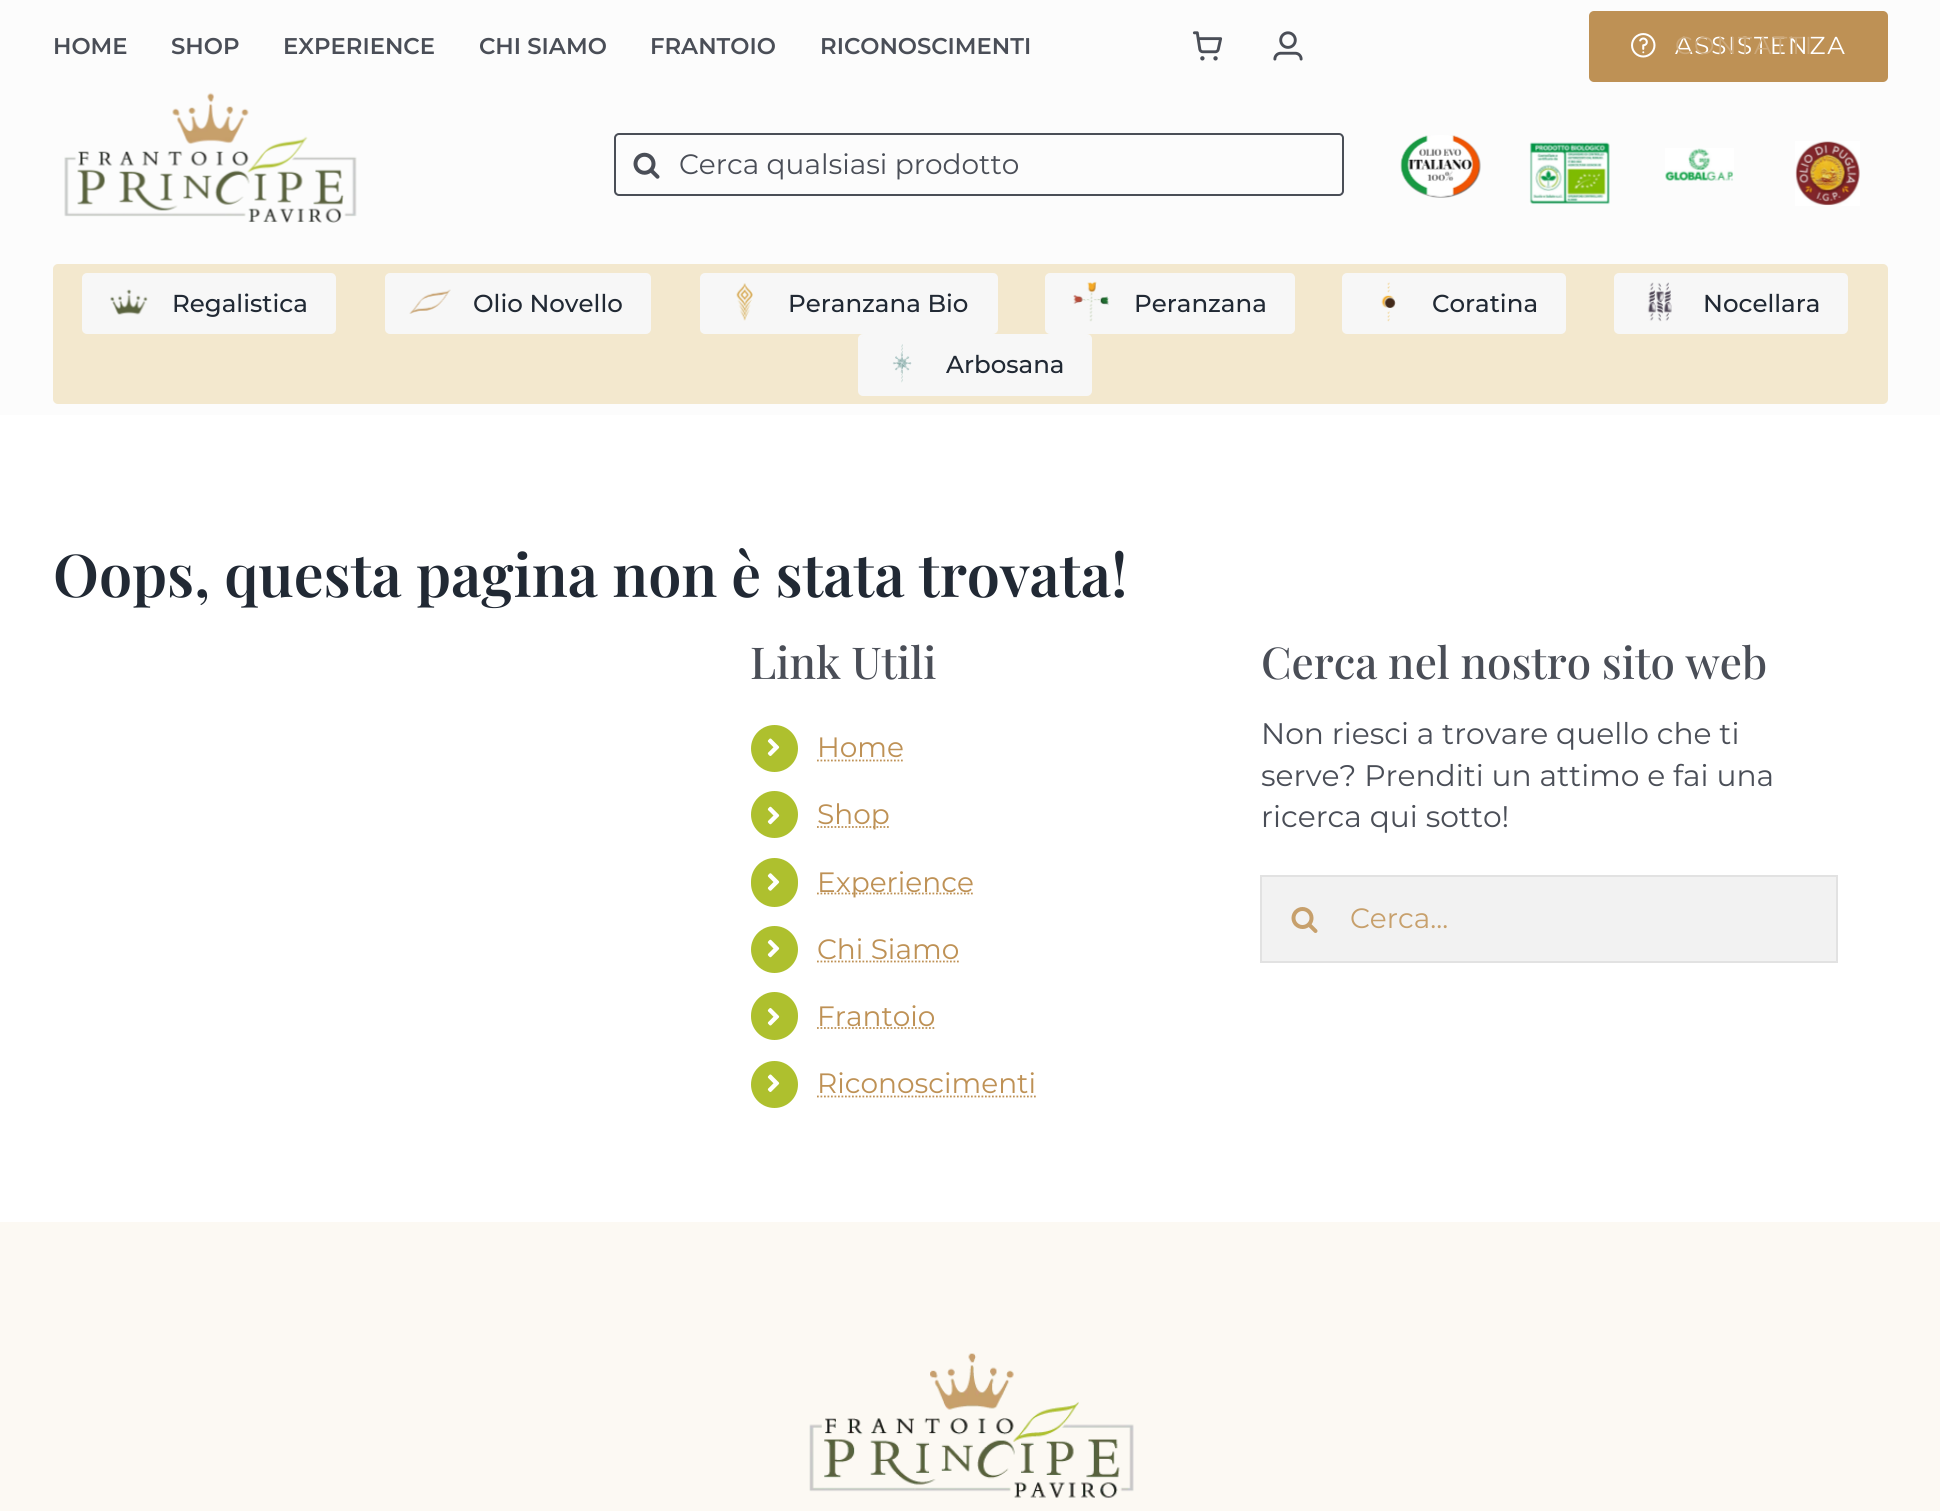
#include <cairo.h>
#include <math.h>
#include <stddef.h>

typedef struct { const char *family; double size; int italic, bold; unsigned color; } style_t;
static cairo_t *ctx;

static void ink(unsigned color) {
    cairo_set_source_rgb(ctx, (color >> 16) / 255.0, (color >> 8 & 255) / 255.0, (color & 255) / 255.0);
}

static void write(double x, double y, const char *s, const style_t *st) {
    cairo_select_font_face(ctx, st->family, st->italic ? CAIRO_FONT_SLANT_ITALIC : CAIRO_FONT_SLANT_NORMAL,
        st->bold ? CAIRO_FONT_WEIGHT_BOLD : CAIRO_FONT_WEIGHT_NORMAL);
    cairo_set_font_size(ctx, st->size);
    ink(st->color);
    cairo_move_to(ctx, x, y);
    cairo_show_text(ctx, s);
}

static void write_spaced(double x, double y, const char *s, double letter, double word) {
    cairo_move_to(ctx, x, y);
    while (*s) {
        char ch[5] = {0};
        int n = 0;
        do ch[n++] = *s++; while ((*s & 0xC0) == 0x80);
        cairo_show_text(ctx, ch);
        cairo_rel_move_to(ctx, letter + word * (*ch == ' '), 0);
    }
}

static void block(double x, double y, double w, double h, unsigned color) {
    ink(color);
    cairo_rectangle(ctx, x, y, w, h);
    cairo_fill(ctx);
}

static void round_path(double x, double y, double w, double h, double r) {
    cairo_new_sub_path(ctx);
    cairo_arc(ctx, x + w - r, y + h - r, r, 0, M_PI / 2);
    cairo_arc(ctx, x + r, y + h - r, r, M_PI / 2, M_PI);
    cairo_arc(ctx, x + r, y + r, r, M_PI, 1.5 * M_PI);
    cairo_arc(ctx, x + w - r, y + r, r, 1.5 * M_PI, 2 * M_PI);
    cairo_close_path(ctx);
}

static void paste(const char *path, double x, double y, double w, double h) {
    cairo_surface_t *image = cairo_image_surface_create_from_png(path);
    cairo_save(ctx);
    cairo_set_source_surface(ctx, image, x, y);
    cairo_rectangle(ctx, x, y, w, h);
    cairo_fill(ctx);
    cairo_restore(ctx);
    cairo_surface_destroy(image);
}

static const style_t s1 = {"Montserrat SemiBold", 22.75, 0, 0, 0x4a4e57};
static const style_t s2 = {"Montserrat", 28, 0, 0, 0x4a4e57};
static const style_t s3 = {"Montserrat Medium", 24.5, 0, 0, 0x212934};
static const style_t s4 = {"Playfair Display SemiBold", 59.2, 0, 0, 0x212934};
static const style_t s5 = {"Playfair Display Medium", 44, 0, 0, 0x4a4e57};
static const style_t s6 = {"Montserrat", 28, 0, 0, 0xbe9155};
static const style_t s7 = {"Montserrat", 29.75, 0, 0, 0x4a4e57};
static const style_t s8 = {"Montserrat", 28, 0, 0, 0xc7a06c};

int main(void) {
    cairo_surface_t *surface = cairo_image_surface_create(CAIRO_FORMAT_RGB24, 1940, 1511);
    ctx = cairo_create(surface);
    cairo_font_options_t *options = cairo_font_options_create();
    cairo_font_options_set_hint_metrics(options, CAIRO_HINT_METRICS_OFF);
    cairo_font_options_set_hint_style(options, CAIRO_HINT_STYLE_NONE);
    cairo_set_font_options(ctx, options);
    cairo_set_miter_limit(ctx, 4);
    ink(0xffffff);
    cairo_paint(ctx);
    block(0, 0, 1940, 415, 0xfcfcfc);
    write(53, 54, "HOME", &s1);
    write(171, 54, "SHOP", &s1);
    write(283, 54, "EXPERIENCE", &s1);
    write(479, 54, "CHI SIAMO", &s1);
    write(650, 54, "FRANTOIO", &s1);
    write(820, 54, "RICONOSCIMENTI", &s1);
    paste("pic1.png", 1192, 31, 31, 30);
    paste("pic2.png", 1273, 31, 30, 30);
    ink(0xbe9155);
    round_path(1589, 11, 299, 71, 5);
    cairo_fill(ctx);
    paste("pic3.png", 1631, 33, 25, 25);
    cairo_select_font_face(ctx, "Montserrat", CAIRO_FONT_SLANT_NORMAL, CAIRO_FONT_WEIGHT_NORMAL);
    cairo_set_font_size(ctx, 24.5);
    ink(0xffffff);
    write_spaced(1675, 54, "ASSISTENZA", 1.75, 0);
    ink(0xcca879);
    write_spaced(1675, 54, "CONTATTI", 1.75, 0);
    paste("pic4.png", 64, 92, 293, 131);
    round_path(615, 134, 728, 61, 4);
    ink(0x4a4e57);
    cairo_stroke(ctx);
    paste("pic5.png", 633, 152, 27, 27);
    write(679, 174, "Cerca qualsiasi prodotto", &s2);
    paste("pic6.png", 1400, 135, 81, 63);
    paste("pic7.png", 1529, 142, 81, 63);
    paste("pic8.png", 1665, 148, 69, 33);
    paste("pic9.png", 1795, 141, 65, 65);
    ink(0xf3e8ce);
    round_path(53, 264, 1835, 140, 5);
    cairo_fill(ctx);
    ink(0xf7f7f7);
    round_path(83, 274, 252, 59, 4);
    cairo_fill_preserve(ctx);
    cairo_stroke(ctx);
    paste("pic10.png", 110, 289, 38, 26);
    write(172, 312, "Regalistica", &s3);
    ink(0xf7f7f7);
    round_path(386, 274, 264, 59, 4);
    cairo_fill_preserve(ctx);
    cairo_stroke(ctx);
    paste("pic11.png", 409, 289, 42, 25);
    write(473, 312, "Olio Novello", &s3);
    ink(0xf7f7f7);
    round_path(701, 274, 296, 59, 4);
    cairo_fill_preserve(ctx);
    cairo_stroke(ctx);
    paste("pic12.png", 736, 283, 17, 38);
    write(788, 312, "Peranzana Bio", &s3);
    ink(0xf7f7f7);
    round_path(1046, 274, 248, 59, 4);
    cairo_fill_preserve(ctx);
    cairo_stroke(ctx);
    paste("pic13.png", 1073, 281, 36, 41);
    write(1134, 312, "Peranzana", &s3);
    ink(0xf7f7f7);
    round_path(1343, 274, 222, 59, 4);
    cairo_fill_preserve(ctx);
    cairo_stroke(ctx);
    paste("pic14.png", 1381, 282, 15, 40);
    write(1432, 312, "Coratina", &s3);
    ink(0xf7f7f7);
    round_path(1615, 274, 232, 59, 4);
    cairo_fill_preserve(ctx);
    cairo_stroke(ctx);
    paste("pic15.png", 1647, 282, 25, 40);
    write(1703, 312, "Nocellara", &s3);
    ink(0xf7f7f7);
    round_path(859, 335, 232, 60, 4);
    cairo_fill_preserve(ctx);
    cairo_stroke(ctx);
    paste("pic16.png", 892, 344, 20, 39);
    write(946, 373, "Arbosana", &s3);
    write(53, 597, "Oops, questa pagina non è stata trovata!", &s4);
    write(750, 679, "Link Utili", &s5);
    ink(0xaec02e);
    cairo_new_path(ctx);
    cairo_arc(ctx, 774.5, 748.5, 23.5, 0, 2 * M_PI);
    cairo_fill(ctx);
    paste("pic17.png", 767, 738, 13, 18);
    write(817, 757, "Home", &s6);
    cairo_new_path(ctx);
    cairo_move_to(ctx, 817, 760.5);
    cairo_line_to(ctx, 904, 760.5);
    cairo_set_line_width(ctx, 1.8);
    cairo_set_dash(ctx, (double[]){1.75, 1.75}, 2, 0);
    cairo_stroke(ctx);
    ink(0xaec02e);
    cairo_arc(ctx, 774.5, 814.5, 23.5, 0, 2 * M_PI);
    cairo_fill(ctx);
    paste("pic18.png", 767, 806, 13, 19);
    cairo_new_path(ctx);
    cairo_move_to(ctx, 817, 827);
    cairo_line_to(ctx, 890, 827);
    ink(0xbe9155);
    cairo_stroke(ctx);
    write(817, 824, "Shop", &s6);
    ink(0xaec02e);
    round_path(751, 858, 47, 49, 23.5);
    cairo_fill(ctx);
    paste("pic19.png", 767, 873, 13, 18);
    cairo_new_path(ctx);
    cairo_move_to(ctx, 817, 893.5);
    cairo_line_to(ctx, 974, 893.5);
    ink(0xbe9155);
    cairo_stroke(ctx);
    write(817, 892, "Experience", &s6);
    ink(0xaec02e);
    cairo_new_path(ctx);
    cairo_arc(ctx, 774.5, 949.5, 23.5, 0, 2 * M_PI);
    cairo_fill(ctx);
    paste("pic18.png", 767, 939, 13, 19);
    write(817, 959, "Chi Siamo", &s6);
    cairo_new_path(ctx);
    cairo_move_to(ctx, 817, 961.5);
    cairo_line_to(ctx, 959.5, 961.5);
    cairo_stroke(ctx);
    ink(0xaec02e);
    round_path(751, 992, 47, 48, 23.5);
    cairo_fill(ctx);
    paste("pic20.png", 767, 1008, 13, 18);
    write(817, 1026, "Frantoio", &s6);
    cairo_new_path(ctx);
    cairo_move_to(ctx, 817, 1028);
    cairo_line_to(ctx, 935.5, 1028);
    cairo_stroke(ctx);
    ink(0xaec02e);
    cairo_arc(ctx, 774.5, 1084.5, 23.5, 0, 2 * M_PI);
    cairo_fill(ctx);
    paste("pic17.png", 767, 1074, 13, 18);
    write(817, 1093, "Riconoscimenti", &s6);
    cairo_new_path(ctx);
    cairo_move_to(ctx, 817, 1096.5);
    cairo_line_to(ctx, 1036, 1096.5);
    cairo_stroke(ctx);
    write(1261, 679, "Cerca nel nostro sito web", &s5);
    write(1261, 744, "Non riesci a trovare quello che ti", &s7);
    write(1261, 786, "serve? Prenditi un attimo e fai una", &s7);
    write(1261, 827, "ricerca qui sotto!", &s7);
    ink(0xf2f2f2);
    cairo_rectangle(ctx, 1261, 876, 576, 86);
    cairo_fill_preserve(ctx);
    ink(0xe2e2e2);
    cairo_set_line_width(ctx, 2);
    cairo_set_dash(ctx, NULL, 0, 0);
    cairo_stroke(ctx);
    paste("pic21.png", 1291, 907, 27, 26);
    write(1350, 928, "Cerca...", &s8);
    block(0, 1222, 1940, 289, 0xfcf9f3);
    paste("pic22.png", 809, 1353, 325, 145);
    cairo_surface_write_to_png(surface, "screenshot.png");
    cairo_font_options_destroy(options);
    cairo_destroy(ctx);
    cairo_surface_destroy(surface);
    return 0;
}
